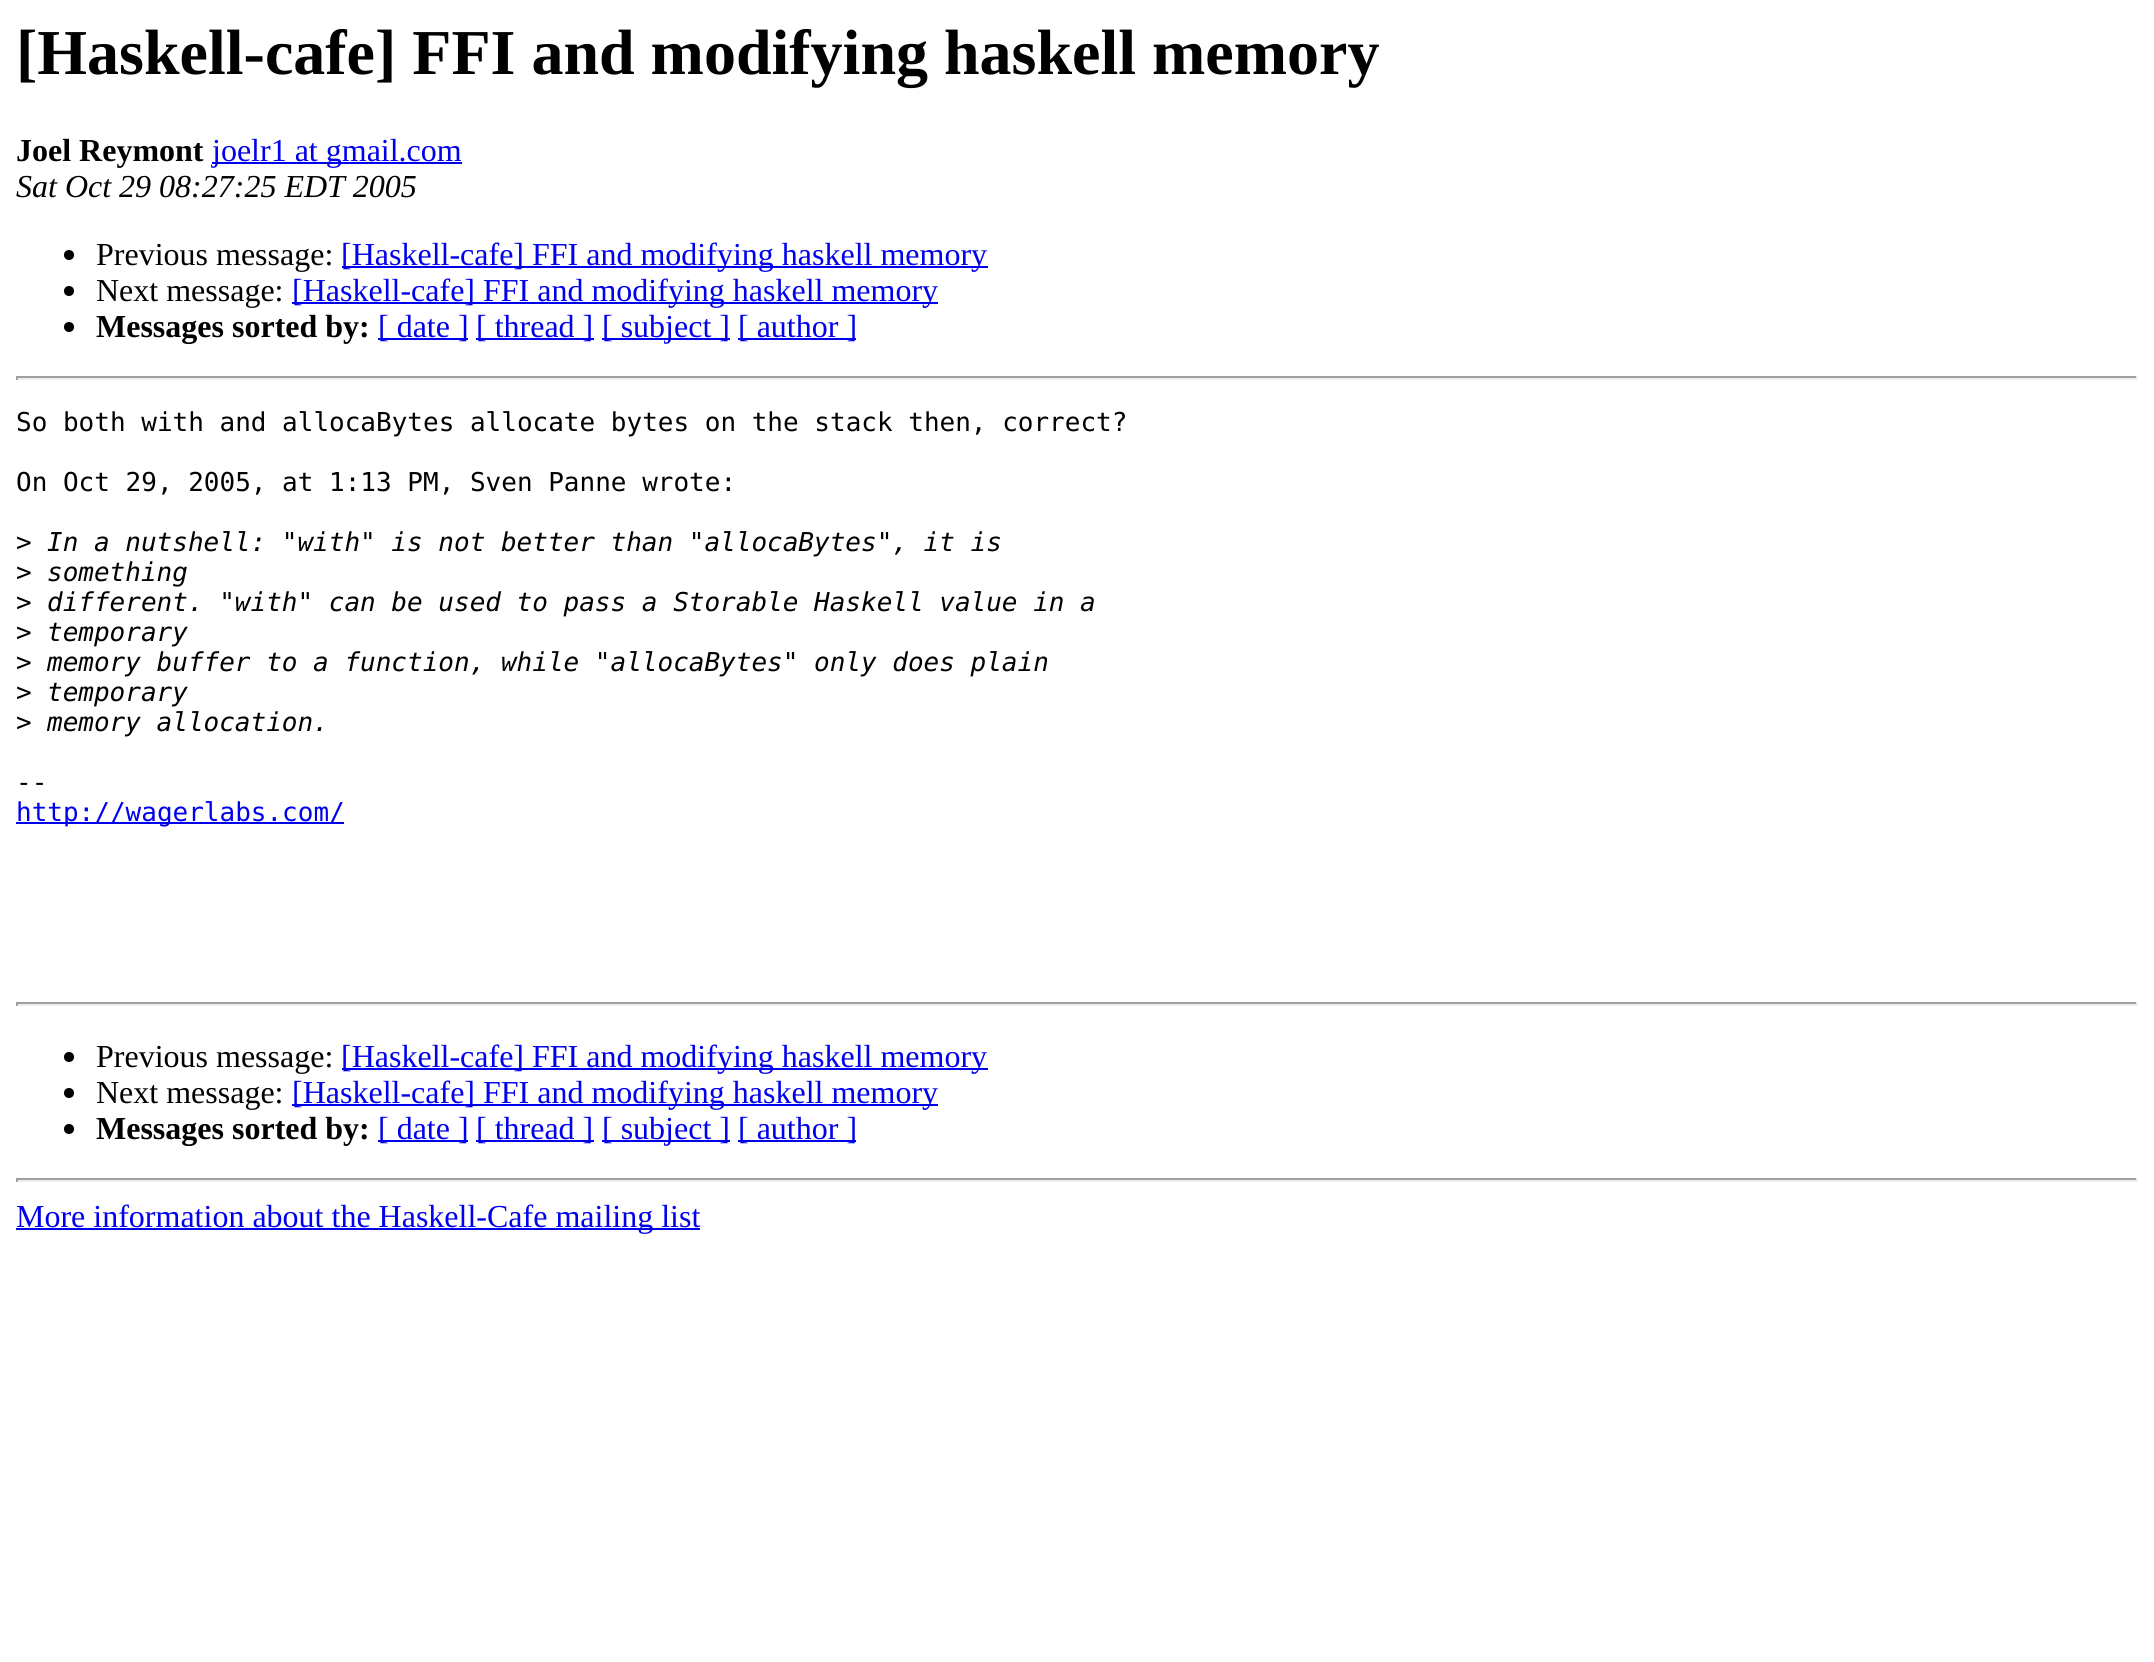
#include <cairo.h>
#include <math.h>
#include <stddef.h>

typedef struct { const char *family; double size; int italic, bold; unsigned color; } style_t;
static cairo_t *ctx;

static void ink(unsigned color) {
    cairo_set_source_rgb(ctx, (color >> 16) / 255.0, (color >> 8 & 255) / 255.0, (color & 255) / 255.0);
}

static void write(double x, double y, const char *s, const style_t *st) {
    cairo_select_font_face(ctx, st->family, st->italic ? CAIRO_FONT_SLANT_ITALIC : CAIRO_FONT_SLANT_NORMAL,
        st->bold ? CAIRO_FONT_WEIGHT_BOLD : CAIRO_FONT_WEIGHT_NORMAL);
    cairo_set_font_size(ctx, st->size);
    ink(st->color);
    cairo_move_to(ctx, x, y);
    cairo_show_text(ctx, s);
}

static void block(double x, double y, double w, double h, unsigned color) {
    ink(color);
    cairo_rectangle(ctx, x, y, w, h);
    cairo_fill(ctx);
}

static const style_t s1 = {"Liberation Serif", 64, 0, 1, 0x000000};
static const style_t s2 = {"Liberation Serif", 32, 0, 1, 0x000000};
static const style_t s3 = {"Liberation Serif", 32, 0, 0, 0x0000ee};
static const style_t s4 = {"Liberation Serif", 32, 1, 0, 0x000000};
static const style_t s5 = {"Liberation Serif", 32, 0, 0, 0x000000};
static const style_t s6 = {"DejaVu Sans Mono", 26, 0, 0, 0x000000};
static const style_t s7 = {"DejaVu Sans Mono", 26, 1, 0, 0x000000};
static const style_t s8 = {"DejaVu Sans Mono", 26, 0, 0, 0x0000ee};

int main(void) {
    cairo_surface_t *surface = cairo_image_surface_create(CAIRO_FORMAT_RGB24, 2154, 1662);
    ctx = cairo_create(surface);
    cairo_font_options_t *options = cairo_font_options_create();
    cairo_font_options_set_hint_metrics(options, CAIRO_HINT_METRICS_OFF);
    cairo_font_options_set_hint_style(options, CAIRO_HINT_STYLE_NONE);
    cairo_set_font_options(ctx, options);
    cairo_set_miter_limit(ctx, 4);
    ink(0xffffff);
    cairo_paint(ctx);
    write(16, 74, "[Haskell-cafe] FFI and modifying haskell memory", &s1);
    write(16, 161, "Joel Reymont", &s2);
    block(212, 162, 250, 2, 0x0000ee);
    write(212, 161, "joelr1 at gmail.com", &s3);
    write(16, 197, "Sat Oct 29 08:27:25 EDT 2005", &s4);
    cairo_new_path(ctx);
    cairo_arc(ctx, 69, 255, 5, 0, 2 * M_PI);
    cairo_fill(ctx);
    write(96, 265, "Previous message:", &s5);
    block(342, 266, 646, 2, 0x0000ee);
    write(341, 265, "[Haskell-cafe] FFI and modifying haskell memory", &s3);
    ink(0x000000);
    cairo_new_path(ctx);
    cairo_arc(ctx, 69, 291, 5, 0, 2 * M_PI);
    cairo_fill(ctx);
    write(96, 301, "Next message:", &s5);
    block(292, 302, 646, 2, 0x0000ee);
    write(292, 301, "[Haskell-cafe] FFI and modifying haskell memory", &s3);
    ink(0x000000);
    cairo_new_path(ctx);
    cairo_arc(ctx, 69, 327, 5, 0, 2 * M_PI);
    cairo_fill(ctx);
    write(96, 337, "Messages sorted by:", &s2);
    block(378, 338, 90, 2, 0x0000ee);
    write(378, 337, "[ date ]", &s3);
    block(476, 338, 118, 2, 0x0000ee);
    write(476, 337, "[ thread ]", &s3);
    block(602, 338, 128, 2, 0x0000ee);
    write(602, 337, "[ subject ]", &s3);
    block(738, 338, 118, 2, 0x0000ee);
    write(738, 337, "[ author ]", &s3);
    block(16, 376, 2122, 2, 0x9f9f9f);
    block(2136, 376, 2, 4, 0xeeeeee);
    block(16, 378, 2122, 2, 0xeeeeee);
    block(16, 376, 2, 4, 0x9f9f9f);
    write(16, 431, "So both with and allocaBytes allocate bytes on the stack then, correct?", &s6);
    write(16, 491, "On Oct 29, 2005, at 1:13 PM, Sven Panne wrote:", &s6);
    write(16, 551, ">", &s6);
    write(47, 551, "In a nutshell: \"with\" is not better than \"allocaBytes\", it is", &s7);
    write(16, 581, ">", &s6);
    write(47, 581, "something", &s7);
    write(16, 611, ">", &s6);
    write(47, 611, "different. \"with\" can be used to pass a Storable Haskell value in a", &s7);
    write(16, 641, ">", &s6);
    write(47, 641, "temporary", &s7);
    write(16, 671, ">", &s6);
    write(47, 671, "memory buffer to a function, while \"allocaBytes\" only does plain", &s7);
    write(16, 701, ">", &s6);
    write(47, 701, "temporary", &s7);
    write(16, 731, ">", &s6);
    write(47, 731, "memory allocation.", &s7);
    write(16, 791, "--", &s6);
    block(16, 822, 328, 2, 0x0000ee);
    write(16, 821, "http://wagerlabs.com/", &s8);
    block(16, 1002, 2122, 2, 0x9f9f9f);
    block(2136, 1002, 2, 4, 0xeeeeee);
    block(16, 1004, 2122, 2, 0xeeeeee);
    block(16, 1002, 2, 4, 0x9f9f9f);
    ink(0x000000);
    cairo_new_path(ctx);
    cairo_arc(ctx, 69, 1057, 5, 0, 2 * M_PI);
    cairo_fill(ctx);
    write(96, 1067, "Previous message:", &s5);
    block(342, 1068, 646, 2, 0x0000ee);
    write(341, 1067, "[Haskell-cafe] FFI and modifying haskell memory", &s3);
    ink(0x000000);
    cairo_new_path(ctx);
    cairo_arc(ctx, 69, 1093, 5, 0, 2 * M_PI);
    cairo_fill(ctx);
    write(96, 1103, "Next message:", &s5);
    block(292, 1104, 646, 2, 0x0000ee);
    write(292, 1103, "[Haskell-cafe] FFI and modifying haskell memory", &s3);
    ink(0x000000);
    cairo_new_path(ctx);
    cairo_arc(ctx, 69, 1129, 5, 0, 2 * M_PI);
    cairo_fill(ctx);
    write(96, 1139, "Messages sorted by:", &s2);
    block(378, 1140, 90, 2, 0x0000ee);
    write(378, 1139, "[ date ]", &s3);
    block(476, 1140, 118, 2, 0x0000ee);
    write(476, 1139, "[ thread ]", &s3);
    block(602, 1140, 128, 2, 0x0000ee);
    write(602, 1139, "[ subject ]", &s3);
    block(738, 1140, 118, 2, 0x0000ee);
    write(738, 1139, "[ author ]", &s3);
    block(16, 1178, 2122, 2, 0x9f9f9f);
    block(2136, 1178, 2, 4, 0xeeeeee);
    block(16, 1180, 2122, 2, 0xeeeeee);
    block(16, 1178, 2, 4, 0x9f9f9f);
    block(16, 1228, 684, 2, 0x0000ee);
    write(16, 1227, "More information about the Haskell-Cafe mailing list", &s3);
    cairo_surface_write_to_png(surface, "screenshot.png");
    cairo_font_options_destroy(options);
    cairo_destroy(ctx);
    cairo_surface_destroy(surface);
    return 0;
}
